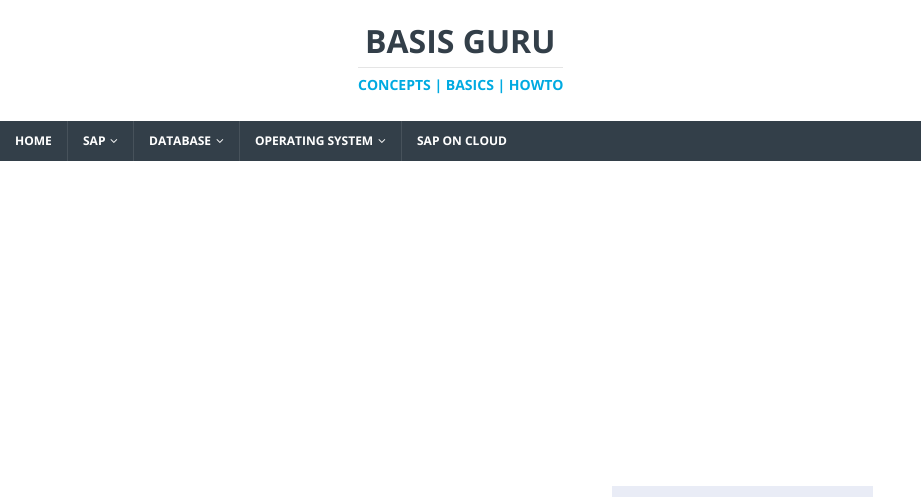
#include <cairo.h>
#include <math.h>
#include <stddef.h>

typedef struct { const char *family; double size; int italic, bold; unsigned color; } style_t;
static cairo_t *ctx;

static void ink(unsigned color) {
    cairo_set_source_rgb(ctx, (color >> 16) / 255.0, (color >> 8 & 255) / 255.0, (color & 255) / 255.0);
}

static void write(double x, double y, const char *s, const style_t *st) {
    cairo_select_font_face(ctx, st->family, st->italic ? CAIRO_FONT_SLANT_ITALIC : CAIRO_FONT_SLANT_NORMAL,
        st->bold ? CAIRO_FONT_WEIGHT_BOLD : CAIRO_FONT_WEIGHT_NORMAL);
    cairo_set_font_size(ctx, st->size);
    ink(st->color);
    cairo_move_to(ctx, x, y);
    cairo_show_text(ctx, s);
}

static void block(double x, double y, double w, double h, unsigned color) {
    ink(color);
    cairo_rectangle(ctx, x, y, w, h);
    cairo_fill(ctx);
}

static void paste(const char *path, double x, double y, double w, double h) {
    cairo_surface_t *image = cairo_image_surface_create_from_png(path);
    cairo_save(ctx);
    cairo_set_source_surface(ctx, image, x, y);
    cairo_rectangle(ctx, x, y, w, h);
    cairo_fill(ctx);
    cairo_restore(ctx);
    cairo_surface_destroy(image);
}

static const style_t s1 = {"Open Sans", 32, 0, 1, 0x333f49};
static const style_t s2 = {"Open Sans", 14, 0, 1, 0x00aae1};
static const style_t s3 = {"Open Sans", 12, 0, 1, 0xffffff};

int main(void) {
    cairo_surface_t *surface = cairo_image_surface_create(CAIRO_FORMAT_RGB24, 921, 497);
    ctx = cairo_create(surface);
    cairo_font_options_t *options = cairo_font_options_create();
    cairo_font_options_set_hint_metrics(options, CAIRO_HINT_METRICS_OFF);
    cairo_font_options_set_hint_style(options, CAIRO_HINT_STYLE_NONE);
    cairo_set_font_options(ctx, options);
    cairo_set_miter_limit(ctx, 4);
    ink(0xffffff);
    cairo_paint(ctx);
    write(365, 53, "BASIS GURU", &s1);
    block(358, 67, 205, 1, 0xe5e5e5);
    write(358, 90, "CONCEPTS | BASICS | HOWTO", &s2);
    block(0, 121, 921, 40, 0x333f49);
    write(15, 145, "HOME", &s3);
    block(67, 121, 1, 40, 0x47525b);
    write(83, 145, "SAP", &s3);
    paste("pic1.png", 110, 139, 8, 4);
    block(133, 121, 1, 40, 0x47525b);
    write(149, 145, "DATABASE", &s3);
    paste("pic1.png", 216, 139, 8, 4);
    block(239, 121, 1, 40, 0x47525b);
    write(255, 145, "OPERATING SYSTEM", &s3);
    paste("pic1.png", 378, 139, 8, 4);
    block(401, 121, 1, 40, 0x47525b);
    write(417, 145, "SAP ON CLOUD", &s3);
    block(612, 486, 261, 11, 0xe9ecf6);
    cairo_surface_write_to_png(surface, "screenshot.png");
    cairo_font_options_destroy(options);
    cairo_destroy(ctx);
    cairo_surface_destroy(surface);
    return 0;
}
